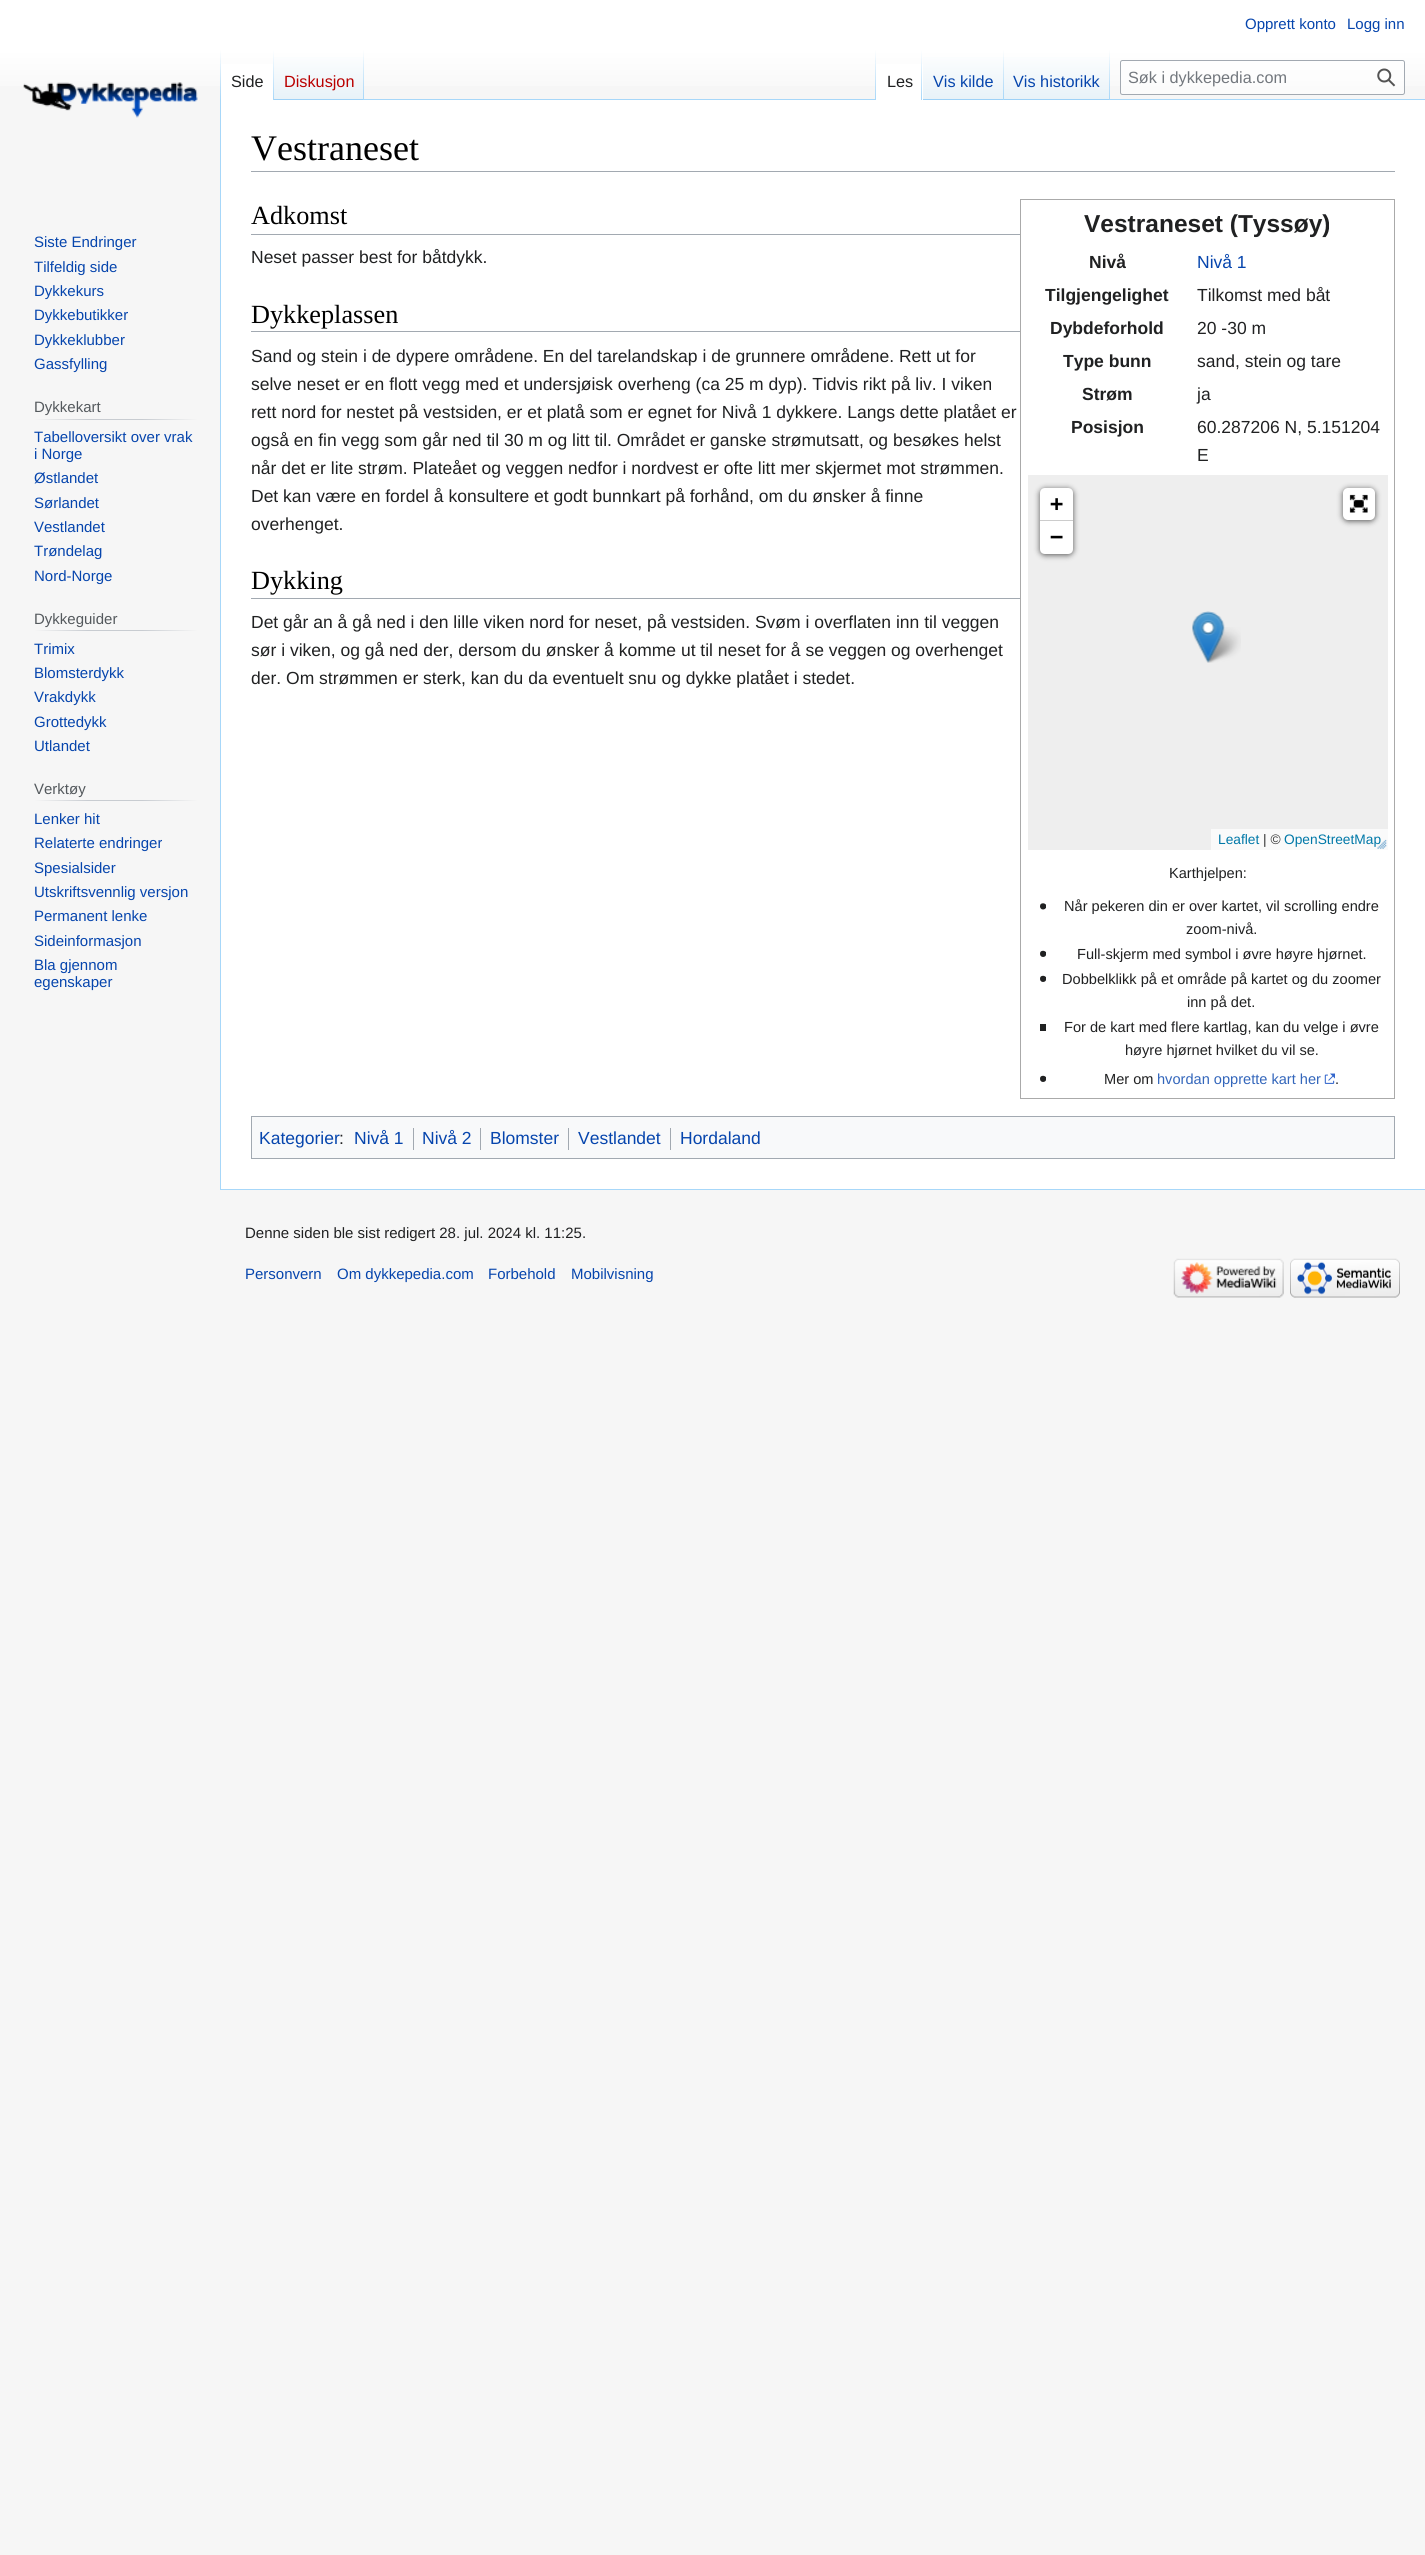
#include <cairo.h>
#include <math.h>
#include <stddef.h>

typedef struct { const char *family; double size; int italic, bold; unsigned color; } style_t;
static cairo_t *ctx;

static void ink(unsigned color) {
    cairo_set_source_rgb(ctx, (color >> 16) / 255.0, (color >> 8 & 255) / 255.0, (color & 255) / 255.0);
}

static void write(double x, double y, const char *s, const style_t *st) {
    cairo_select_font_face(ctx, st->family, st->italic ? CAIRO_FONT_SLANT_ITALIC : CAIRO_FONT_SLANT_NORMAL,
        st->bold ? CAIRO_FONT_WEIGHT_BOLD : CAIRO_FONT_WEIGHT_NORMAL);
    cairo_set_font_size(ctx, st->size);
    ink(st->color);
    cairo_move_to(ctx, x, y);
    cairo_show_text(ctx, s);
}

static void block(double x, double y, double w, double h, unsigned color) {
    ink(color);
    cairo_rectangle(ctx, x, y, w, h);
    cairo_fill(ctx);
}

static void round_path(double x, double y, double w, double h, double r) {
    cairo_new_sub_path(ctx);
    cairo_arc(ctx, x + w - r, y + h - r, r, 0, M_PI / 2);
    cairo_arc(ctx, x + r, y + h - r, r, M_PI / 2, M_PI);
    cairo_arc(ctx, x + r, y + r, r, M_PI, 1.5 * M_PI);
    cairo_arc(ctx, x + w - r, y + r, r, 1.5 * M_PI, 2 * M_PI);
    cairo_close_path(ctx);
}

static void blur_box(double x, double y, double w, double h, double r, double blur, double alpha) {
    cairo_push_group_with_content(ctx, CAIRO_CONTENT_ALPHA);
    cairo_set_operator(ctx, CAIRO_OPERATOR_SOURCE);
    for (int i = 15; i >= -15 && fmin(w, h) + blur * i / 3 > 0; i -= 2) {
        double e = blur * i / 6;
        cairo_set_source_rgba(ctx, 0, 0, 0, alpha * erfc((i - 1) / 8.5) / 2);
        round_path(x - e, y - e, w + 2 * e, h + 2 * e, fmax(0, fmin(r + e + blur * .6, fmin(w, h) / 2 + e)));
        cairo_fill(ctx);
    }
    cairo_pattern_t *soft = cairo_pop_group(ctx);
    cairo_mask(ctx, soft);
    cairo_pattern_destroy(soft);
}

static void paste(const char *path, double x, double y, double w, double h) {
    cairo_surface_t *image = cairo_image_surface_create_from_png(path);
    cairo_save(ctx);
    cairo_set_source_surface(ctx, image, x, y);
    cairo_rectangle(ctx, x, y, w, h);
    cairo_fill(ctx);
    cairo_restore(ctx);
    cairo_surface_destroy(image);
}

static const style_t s1 = {"Liberation Sans", 15, 0, 0, 0x0645ad};
static const style_t s2 = {"Liberation Sans", 16.25, 0, 0, 0x202122};
static const style_t s3 = {"Liberation Sans", 16.25, 0, 0, 0xba0000};
static const style_t s4 = {"Liberation Sans", 16.25, 0, 0, 0x0645ad};
static const style_t s5 = {"Liberation Sans", 16.25, 0, 0, 0x72777d};
static const style_t s6 = {"Liberation Sans", 15, 0, 0, 0x54595d};
static const style_t s7 = {"Liberation Serif", 36, 0, 0, 0x000000};
static const style_t s8 = {"Liberation Serif", 26.25, 0, 0, 0x000000};
static const style_t s9 = {"Liberation Sans", 24.5, 0, 1, 0x202122};
static const style_t s10 = {"Liberation Sans", 17.5, 0, 1, 0x202122};
static const style_t s11 = {"Liberation Sans", 17.5, 0, 0, 0x0645ad};
static const style_t s12 = {"Liberation Sans", 17.5, 0, 0, 0x202122};
static const style_t s13 = {"DejaVu Sans Mono", 22, 0, 1, 0x000000};
static const style_t s14 = {"Liberation Sans", 13.75, 0, 0, 0x0078a8};
static const style_t s15 = {"Liberation Sans", 13.75, 0, 0, 0x333333};
static const style_t s16 = {"Liberation Sans", 14.6, 0, 0, 0x202122};
static const style_t s17 = {"Liberation Sans", 14.6, 0, 0, 0x3366bb};
static const style_t s18 = {"Liberation Sans", 15, 0, 0, 0x202122};

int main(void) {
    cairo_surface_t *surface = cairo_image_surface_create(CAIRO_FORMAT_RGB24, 1425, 2555);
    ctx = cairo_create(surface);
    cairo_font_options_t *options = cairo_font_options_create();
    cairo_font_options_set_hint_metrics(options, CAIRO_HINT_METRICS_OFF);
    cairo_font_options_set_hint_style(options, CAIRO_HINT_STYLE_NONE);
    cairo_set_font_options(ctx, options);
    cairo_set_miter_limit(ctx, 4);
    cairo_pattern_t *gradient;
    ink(0xf6f6f6);
    cairo_paint(ctx);
    gradient = cairo_pattern_create_linear(713, 0, 713, 100);
    cairo_pattern_add_color_stop_rgba(gradient, 0.5, 1, 1, 1, 1);
    cairo_pattern_add_color_stop_rgba(gradient, 1, 0.965, 0.965, 0.965, 1);
    cairo_set_source(ctx, gradient);
    cairo_pattern_destroy(gradient);
    cairo_rectangle(ctx, 0, 0, 1425, 86);
    cairo_fill(ctx);
    write(1245, 29, "Opprett konto", &s1);
    write(1347, 29, "Logg inn", &s1);
    block(220, 1189, 1205, 1, 0xa7d7f9);
    block(220, 99, 1, 1091, 0xa7d7f9);
    gradient = cairo_pattern_create_linear(221, 50, 221, 100);
    cairo_pattern_add_color_stop_rgba(gradient, 0, 0.655, 0.843, 0.976, 0);
    cairo_pattern_add_color_stop_rgba(gradient, 1, 0.655, 0.843, 0.976, 1);
    cairo_set_source(ctx, gradient);
    cairo_pattern_destroy(gradient);
    cairo_rectangle(ctx, 220, 50, 1, 50);
    cairo_fill(ctx);
    block(221, 64, 52, 36, 0xffffff);
    gradient = cairo_pattern_create_linear(273, 50, 273, 100);
    cairo_pattern_add_color_stop_rgba(gradient, 0, 1, 1, 1, 1);
    cairo_pattern_add_color_stop_rgba(gradient, 1, 0.655, 0.843, 0.976, 1);
    cairo_set_source(ctx, gradient);
    cairo_pattern_destroy(gradient);
    cairo_rectangle(ctx, 273, 50, 1, 50);
    cairo_fill(ctx);
    write(231, 87, "Side", &s2);
    gradient = cairo_pattern_create_linear(319, 100, 319, 50);
    cairo_pattern_add_color_stop_rgba(gradient, 0, 0.467, 0.757, 0.965, 1);
    cairo_pattern_add_color_stop_rgba(gradient, 0.03, 0.91, 0.949, 0.973, 1);
    cairo_pattern_add_color_stop_rgba(gradient, 1, 1, 1, 1, 1);
    cairo_set_source(ctx, gradient);
    cairo_pattern_destroy(gradient);
    cairo_rectangle(ctx, 274, 57, 90, 43);
    cairo_fill(ctx);
    gradient = cairo_pattern_create_linear(363, 50, 363, 100);
    cairo_pattern_add_color_stop_rgba(gradient, 0, 0.655, 0.843, 0.976, 0);
    cairo_pattern_add_color_stop_rgba(gradient, 1, 0.655, 0.843, 0.976, 1);
    cairo_set_source(ctx, gradient);
    cairo_pattern_destroy(gradient);
    cairo_rectangle(ctx, 363, 50, 1, 50);
    cairo_fill(ctx);
    write(284, 87, "Diskusjon", &s3);
    block(364, 99, 1061, 1, 0xa7d7f9);
    gradient = cairo_pattern_create_linear(876, 50, 876, 100);
    cairo_pattern_add_color_stop_rgba(gradient, 0, 0.655, 0.843, 0.976, 0);
    cairo_pattern_add_color_stop_rgba(gradient, 1, 0.655, 0.843, 0.976, 1);
    cairo_set_source(ctx, gradient);
    cairo_pattern_destroy(gradient);
    cairo_rectangle(ctx, 875, 50, 1, 50);
    cairo_fill(ctx);
    block(876, 64, 47, 36, 0xffffff);
    gradient = cairo_pattern_create_linear(922, 50, 922, 100);
    cairo_pattern_add_color_stop_rgba(gradient, 0, 1, 1, 1, 1);
    cairo_pattern_add_color_stop_rgba(gradient, 1, 0.655, 0.843, 0.976, 1);
    cairo_set_source(ctx, gradient);
    cairo_pattern_destroy(gradient);
    cairo_rectangle(ctx, 921, 50, 1, 50);
    cairo_fill(ctx);
    write(887, 87, "Les", &s2);
    gradient = cairo_pattern_create_linear(963, 100, 963, 50);
    cairo_pattern_add_color_stop_rgba(gradient, 0, 0.467, 0.757, 0.965, 1);
    cairo_pattern_add_color_stop_rgba(gradient, 0.03, 0.91, 0.949, 0.973, 1);
    cairo_pattern_add_color_stop_rgba(gradient, 1, 1, 1, 1, 1);
    cairo_set_source(ctx, gradient);
    cairo_pattern_destroy(gradient);
    cairo_rectangle(ctx, 923, 57, 81, 43);
    cairo_fill(ctx);
    gradient = cairo_pattern_create_linear(1003, 50, 1003, 100);
    cairo_pattern_add_color_stop_rgba(gradient, 0, 0.655, 0.843, 0.976, 0);
    cairo_pattern_add_color_stop_rgba(gradient, 1, 0.655, 0.843, 0.976, 1);
    cairo_set_source(ctx, gradient);
    cairo_pattern_destroy(gradient);
    cairo_rectangle(ctx, 1003, 50, 1, 50);
    cairo_fill(ctx);
    write(933, 87, "Vis kilde", &s4);
    gradient = cairo_pattern_create_linear(1057, 100, 1057, 50);
    cairo_pattern_add_color_stop_rgba(gradient, 0, 0.467, 0.757, 0.965, 1);
    cairo_pattern_add_color_stop_rgba(gradient, 0.03, 0.91, 0.949, 0.973, 1);
    cairo_pattern_add_color_stop_rgba(gradient, 1, 1, 1, 1, 1);
    cairo_set_source(ctx, gradient);
    cairo_pattern_destroy(gradient);
    cairo_rectangle(ctx, 1004, 57, 106, 43);
    cairo_fill(ctx);
    gradient = cairo_pattern_create_linear(1109, 50, 1109, 100);
    cairo_pattern_add_color_stop_rgba(gradient, 0, 0.655, 0.843, 0.976, 0);
    cairo_pattern_add_color_stop_rgba(gradient, 1, 0.655, 0.843, 0.976, 1);
    cairo_set_source(ctx, gradient);
    cairo_pattern_destroy(gradient);
    cairo_rectangle(ctx, 1109, 50, 1, 50);
    cairo_fill(ctx);
    write(1013, 87, "Vis historikk", &s4);
    cairo_set_source_rgba(ctx, 1, 1, 1, 0.5);
    round_path(1120.5, 60.5, 284, 34, 2);
    cairo_fill_preserve(ctx);
    ink(0xa2a9b1);
    cairo_set_line_width(ctx, 1);
    cairo_stroke(ctx);
    write(1128, 83, "Søk i dykkepedia.com", &s5);
    paste("pic1.png", 1377, 68, 19, 19);
    paste("pic2.png", 23, 82, 175, 36);
    write(34, 247, "Siste Endringer", &s1);
    write(34, 272, "Tilfeldig side", &s1);
    write(34, 296, "Dykkekurs", &s1);
    write(34, 320, "Dykkebutikker", &s1);
    write(34, 345, "Dykkeklubber", &s1);
    write(34, 369, "Gassfylling", &s1);
    gradient = cairo_pattern_create_linear(34, 419, 198, 419);
    cairo_pattern_add_color_stop_rgba(gradient, 0, 0.965, 0.965, 0.965, 1);
    cairo_pattern_add_color_stop_rgba(gradient, 0.33, 0.784, 0.8, 0.82, 1);
    cairo_pattern_add_color_stop_rgba(gradient, 0.66, 0.784, 0.8, 0.82, 1);
    cairo_pattern_add_color_stop_rgba(gradient, 1, 0.965, 0.965, 0.965, 1);
    cairo_set_source(ctx, gradient);
    cairo_pattern_destroy(gradient);
    cairo_rectangle(ctx, 34, 419, 164, 1);
    cairo_fill(ctx);
    write(34, 412, "Dykkekart", &s6);
    write(34, 442, "Tabelloversikt over vrak", &s1);
    write(34, 459, "i Norge", &s1);
    write(34, 483, "Østlandet", &s1);
    write(34, 508, "Sørlandet", &s1);
    write(34, 532, "Vestlandet", &s1);
    write(34, 556, "Trøndelag", &s1);
    write(34, 581, "Nord-Norge", &s1);
    gradient = cairo_pattern_create_linear(34, 631, 198, 631);
    cairo_pattern_add_color_stop_rgba(gradient, 0, 0.965, 0.965, 0.965, 1);
    cairo_pattern_add_color_stop_rgba(gradient, 0.33, 0.784, 0.8, 0.82, 1);
    cairo_pattern_add_color_stop_rgba(gradient, 0.66, 0.784, 0.8, 0.82, 1);
    cairo_pattern_add_color_stop_rgba(gradient, 1, 0.965, 0.965, 0.965, 1);
    cairo_set_source(ctx, gradient);
    cairo_pattern_destroy(gradient);
    cairo_rectangle(ctx, 34, 630, 164, 1);
    cairo_fill(ctx);
    write(34, 624, "Dykkeguider", &s6);
    write(34, 654, "Trimix", &s1);
    write(34, 678, "Blomsterdykk", &s1);
    write(34, 702, "Vrakdykk", &s1);
    write(34, 727, "Grottedykk", &s1);
    write(34, 751, "Utlandet", &s1);
    gradient = cairo_pattern_create_linear(34, 801, 198, 801);
    cairo_pattern_add_color_stop_rgba(gradient, 0, 0.965, 0.965, 0.965, 1);
    cairo_pattern_add_color_stop_rgba(gradient, 0.33, 0.784, 0.8, 0.82, 1);
    cairo_pattern_add_color_stop_rgba(gradient, 0.66, 0.784, 0.8, 0.82, 1);
    cairo_pattern_add_color_stop_rgba(gradient, 1, 0.965, 0.965, 0.965, 1);
    cairo_set_source(ctx, gradient);
    cairo_pattern_destroy(gradient);
    cairo_rectangle(ctx, 34, 800, 164, 1);
    cairo_fill(ctx);
    write(34, 794, "Verktøy", &s6);
    write(34, 824, "Lenker hit", &s1);
    write(34, 848, "Relaterte endringer", &s1);
    write(34, 873, "Spesialsider", &s1);
    write(34, 897, "Utskriftsvennlig versjon", &s1);
    write(34, 921, "Permanent lenke", &s1);
    write(34, 946, "Sideinformasjon", &s1);
    write(34, 970, "Bla gjennom", &s1);
    write(34, 987, "egenskaper", &s1);
    block(221, 100, 1204, 1089, 0xffffff);
    block(251, 171, 1144, 1, 0xa2a9b1);
    write(251, 160, "Vestraneset", &s7);
    block(251, 234, 769, 1, 0xa2a9b1);
    write(251, 224, "Adkomst", &s8);
    cairo_rectangle(ctx, 1020.5, 199.5, 374, 899);
    ink(0xaaaaaa);
    cairo_stroke(ctx);
    write(1084, 232, "Vestraneset (Tyssøy)", &s9);
    write(1089, 268, "Nivå", &s10);
    write(1197, 268, "Nivå 1", &s11);
    write(1045, 301, "Tilgjengelighet", &s10);
    write(1197, 301, "Tilkomst med båt", &s12);
    write(1050, 334, "Dybdeforhold", &s10);
    write(1197, 334, "20 -30 m", &s12);
    write(1063, 367, "Type bunn", &s10);
    write(1197, 367, "sand, stein og tare", &s12);
    write(1082, 400, "Strøm", &s10);
    write(1197, 400, "ja", &s12);
    write(1071, 433, "Posisjon", &s10);
    write(1197, 433, "60.287206 N, 5.151204", &s12);
    write(1197, 461, "E", &s12);
    block(1028, 475, 360, 375, 0xeeeeee);
    ink(0x000000);
    blur_box(1040, 489, 33, 66, 5, 3, 0.65);
    ink(0xffffff);
    cairo_new_path(ctx);
    cairo_move_to(ctx, 1045, 488);
    cairo_line_to(ctx, 1068, 488);
    cairo_curve_to(ctx, 1071, 488, 1073, 490, 1073, 493);
    cairo_line_to(ctx, 1073, 521);
    cairo_line_to(ctx, 1040, 521);
    cairo_line_to(ctx, 1040, 493);
    cairo_curve_to(ctx, 1040, 490, 1042, 488, 1045, 488);
    cairo_close_path(ctx);
    cairo_fill(ctx);
    block(1040, 520, 33, 1, 0xcccccc);
    write(1050, 511, "+", &s13);
    ink(0xffffff);
    cairo_new_path(ctx);
    cairo_move_to(ctx, 1040, 521);
    cairo_line_to(ctx, 1073, 521);
    cairo_line_to(ctx, 1073, 549);
    cairo_curve_to(ctx, 1073, 552, 1071, 554, 1068, 554);
    cairo_line_to(ctx, 1045, 554);
    cairo_curve_to(ctx, 1042, 554, 1040, 552, 1040, 549);
    cairo_close_path(ctx);
    cairo_fill(ctx);
    write(1050, 544, "−", &s13);
    ink(0x000000);
    blur_box(1343, 489, 32, 32, 5, 3, 0.65);
    ink(0xffffff);
    round_path(1343, 488, 32, 32, 5);
    cairo_fill(ctx);
    paste("pic3.png", 1349, 494, 19, 19);
    block(1211, 829, 177, 21, 0xfafafa);
    write(1218, 844, "Leaflet", &s14);
    write(1263, 844, "| ©", &s15);
    write(1284, 844, "OpenStreetMap", &s14);
    paste("pic5.png", 1204, 627, 37, 36);
    paste("pic4.png", 1192, 611, 33, 52);
    paste("pic6.png", 1377, 839, 10, 10);
    write(1169, 878, "Karthjelpen:", &s16);
    paste("pic7.png", 1040, 903, 6, 7);
    write(1064, 911, "Når pekeren din er over kartet, vil scrolling endre", &s16);
    write(1186, 934, "zoom-nivå.", &s16);
    paste("pic8.png", 1040, 950, 6, 7);
    write(1077, 959, "Full-skjerm med symbol i øvre høyre hjørnet.", &s16);
    paste("pic8.png", 1040, 975, 6, 7);
    write(1062, 984, "Dobbelklikk på et område på kartet og du zoomer", &s16);
    write(1187, 1007, "inn på det.", &s16);
    block(1040, 1024, 6, 7, 0x202122);
    write(1064, 1032, "For de kart med flere kartlag, kan du velge i øvre", &s16);
    write(1125, 1055, "høyre hjørnet hvilket du vil se.", &s16);
    paste("pic8.png", 1040, 1075, 6, 7);
    write(1104, 1084, "Mer om", &s16);
    write(1157, 1084, "hvordan opprette kart her", &s17);
    paste("pic9.png", 1324, 1073, 11, 11);
    write(1335, 1084, ".", &s16);
    write(251, 263, "Neset passer best for båtdykk.", &s12);
    block(251, 331, 769, 1, 0xa2a9b1);
    write(251, 323, "Dykkeplassen", &s8);
    write(251, 362, "Sand og stein i de dypere områdene. En del tarelandskap i de grunnere områdene. Rett ut for", &s12);
    write(251, 390, "selve neset er en flott vegg med et undersjøisk overheng (ca 25 m dyp). Tidvis rikt på liv. I viken", &s12);
    write(251, 418, "rett nord for nestet på vestsiden, er et platå som er egnet for Nivå 1 dykkere. Langs dette platået er", &s12);
    write(251, 446, "også en fin vegg som går ned til 30 m og litt til. Området er ganske strømutsatt, og besøkes helst", &s12);
    write(251, 474, "når det er lite strøm. Plateået og veggen nedfor i nordvest er ofte litt mer skjermet mot strømmen.", &s12);
    write(251, 502, "Det kan være en fordel å konsultere et godt bunnkart på forhånd, om du ønsker å finne", &s12);
    write(251, 530, "overhenget.", &s12);
    block(251, 598, 769, 1, 0xa2a9b1);
    write(251, 589, "Dykking", &s8);
    write(251, 628, "Det går an å gå ned i den lille viken nord for neset, på vestsiden. Svøm i overflaten inn til veggen", &s12);
    write(251, 656, "sør i viken, og gå ned der, dersom du ønsker å komme ut til neset for å se veggen og overhenget", &s12);
    write(251, 684, "der. Om strømmen er sterk, kan du da eventuelt snu og dykke platået i stedet.", &s12);
    ink(0xf8f9fa);
    cairo_rectangle(ctx, 251.5, 1116.5, 1143, 42);
    cairo_fill_preserve(ctx);
    ink(0xa2a9b1);
    cairo_stroke(ctx);
    write(259, 1144, "Kategorier", &s11);
    write(339, 1144, ":", &s12);
    write(354, 1144, "Nivå 1", &s11);
    block(413, 1128, 1, 22, 0xa2a9b1);
    write(422, 1144, "Nivå 2", &s11);
    block(480, 1128, 1, 22, 0xa2a9b1);
    write(490, 1144, "Blomster", &s11);
    block(568, 1128, 1, 22, 0xa2a9b1);
    write(578, 1144, "Vestlandet", &s11);
    block(670, 1128, 1, 22, 0xa2a9b1);
    write(680, 1144, "Hordaland", &s11);
    write(245, 1238, "Denne siden ble sist redigert 28. jul. 2024 kl. 11:25.", &s18);
    write(245, 1279, "Personvern", &s1);
    write(337, 1279, "Om dykkepedia.com", &s1);
    write(488, 1279, "Forbehold", &s1);
    write(571, 1279, "Mobilvisning", &s1);
    paste("pic10.png", 1173, 1258, 111, 40);
    paste("pic11.png", 1290, 1258, 110, 40);
    cairo_surface_write_to_png(surface, "screenshot.png");
    cairo_font_options_destroy(options);
    cairo_destroy(ctx);
    cairo_surface_destroy(surface);
    return 0;
}
